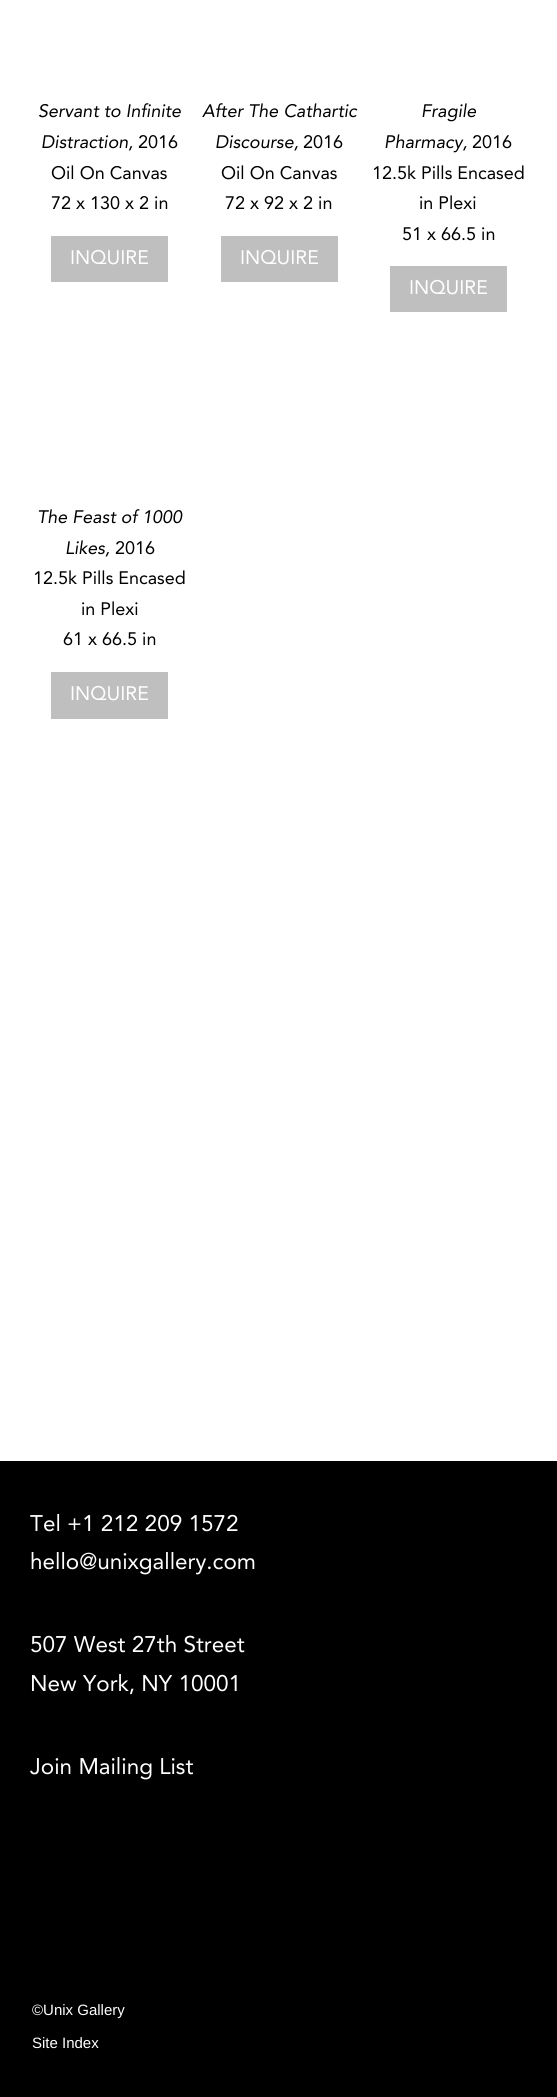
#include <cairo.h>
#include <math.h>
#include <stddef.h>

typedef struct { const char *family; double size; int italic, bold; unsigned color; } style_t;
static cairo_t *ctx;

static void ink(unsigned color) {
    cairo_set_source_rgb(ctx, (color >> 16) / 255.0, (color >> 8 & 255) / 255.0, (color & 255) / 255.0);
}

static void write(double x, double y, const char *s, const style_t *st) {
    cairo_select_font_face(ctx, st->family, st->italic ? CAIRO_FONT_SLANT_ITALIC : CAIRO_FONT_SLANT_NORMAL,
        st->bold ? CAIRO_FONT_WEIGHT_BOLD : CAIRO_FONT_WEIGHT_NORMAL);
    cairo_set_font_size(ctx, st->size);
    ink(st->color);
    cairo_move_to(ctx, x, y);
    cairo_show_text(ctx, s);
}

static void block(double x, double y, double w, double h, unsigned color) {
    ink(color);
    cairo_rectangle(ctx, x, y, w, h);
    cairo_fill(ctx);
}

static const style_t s1 = {"Avenir", 18, 1, 0, 0x000000};
static const style_t s2 = {"Avenir", 18, 0, 0, 0x000000};
static const style_t s3 = {"Avenir", 19.5, 0, 0, 0xffffff};
static const style_t s4 = {"Avenir", 22.5, 0, 0, 0xffffff};
static const style_t s5 = {"Liberation Sans", 15, 0, 0, 0xffffff};

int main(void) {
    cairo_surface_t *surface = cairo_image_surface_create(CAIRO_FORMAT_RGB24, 557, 2097);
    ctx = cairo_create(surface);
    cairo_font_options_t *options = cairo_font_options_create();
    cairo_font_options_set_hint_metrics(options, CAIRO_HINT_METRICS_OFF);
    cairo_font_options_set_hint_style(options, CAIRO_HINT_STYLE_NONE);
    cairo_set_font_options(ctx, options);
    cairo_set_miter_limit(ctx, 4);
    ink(0xffffff);
    cairo_paint(ctx);
    write(38, 117, "Servant to Infinite", &s1);
    write(41, 148, "Distraction,", &s1);
    write(138, 148, "2016", &s2);
    write(51, 179, "Oil On Canvas", &s2);
    write(51, 209, "72 x 130 x 2 in", &s2);
    block(51, 236, 117, 46, 0xbfbfbf);
    write(70, 264, "INQUIRE", &s3);
    write(202, 117, "After The Cathartic", &s1);
    write(215, 148, "Discourse,", &s1);
    write(303, 148, "2016", &s2);
    write(221, 179, "Oil On Canvas", &s2);
    write(225, 209, "72 x 92 x 2 in", &s2);
    block(221, 236, 117, 46, 0xbfbfbf);
    write(240, 264, "INQUIRE", &s3);
    write(421, 117, "Fragile", &s1);
    write(384, 148, "Pharmacy,", &s1);
    write(472, 148, "2016", &s2);
    write(372, 179, "12.5k Pills Encased", &s2);
    write(419, 209, "in Plexi", &s2);
    write(402, 240, "51 x 66.5 in", &s2);
    block(390, 266, 117, 46, 0xbfbfbf);
    write(409, 294, "INQUIRE", &s3);
    write(37, 523, "The Feast of 1000", &s1);
    write(65, 554, "Likes,", &s1);
    write(115, 554, "2016", &s2);
    write(33, 584, "12.5k Pills Encased", &s2);
    write(81, 615, "in Plexi", &s2);
    write(63, 645, "61 x 66.5 in", &s2);
    block(51, 672, 117, 47, 0xbfbfbf);
    write(70, 700, "INQUIRE", &s3);
    block(0, 1461, 557, 636, 0x000000);
    write(30, 1531, "Tel +1 212 209 1572", &s4);
    write(30, 1569, "hello@unixgallery.com", &s4);
    write(30, 1652, "507 West 27th Street", &s4);
    write(30, 1691, "New York, NY 10001", &s4);
    write(30, 1774, "Join Mailing List", &s4);
    write(32, 2015, "©Unix Gallery", &s5);
    write(32, 2048, "Site Index", &s5);
    cairo_surface_write_to_png(surface, "screenshot.png");
    cairo_font_options_destroy(options);
    cairo_destroy(ctx);
    cairo_surface_destroy(surface);
    return 0;
}
